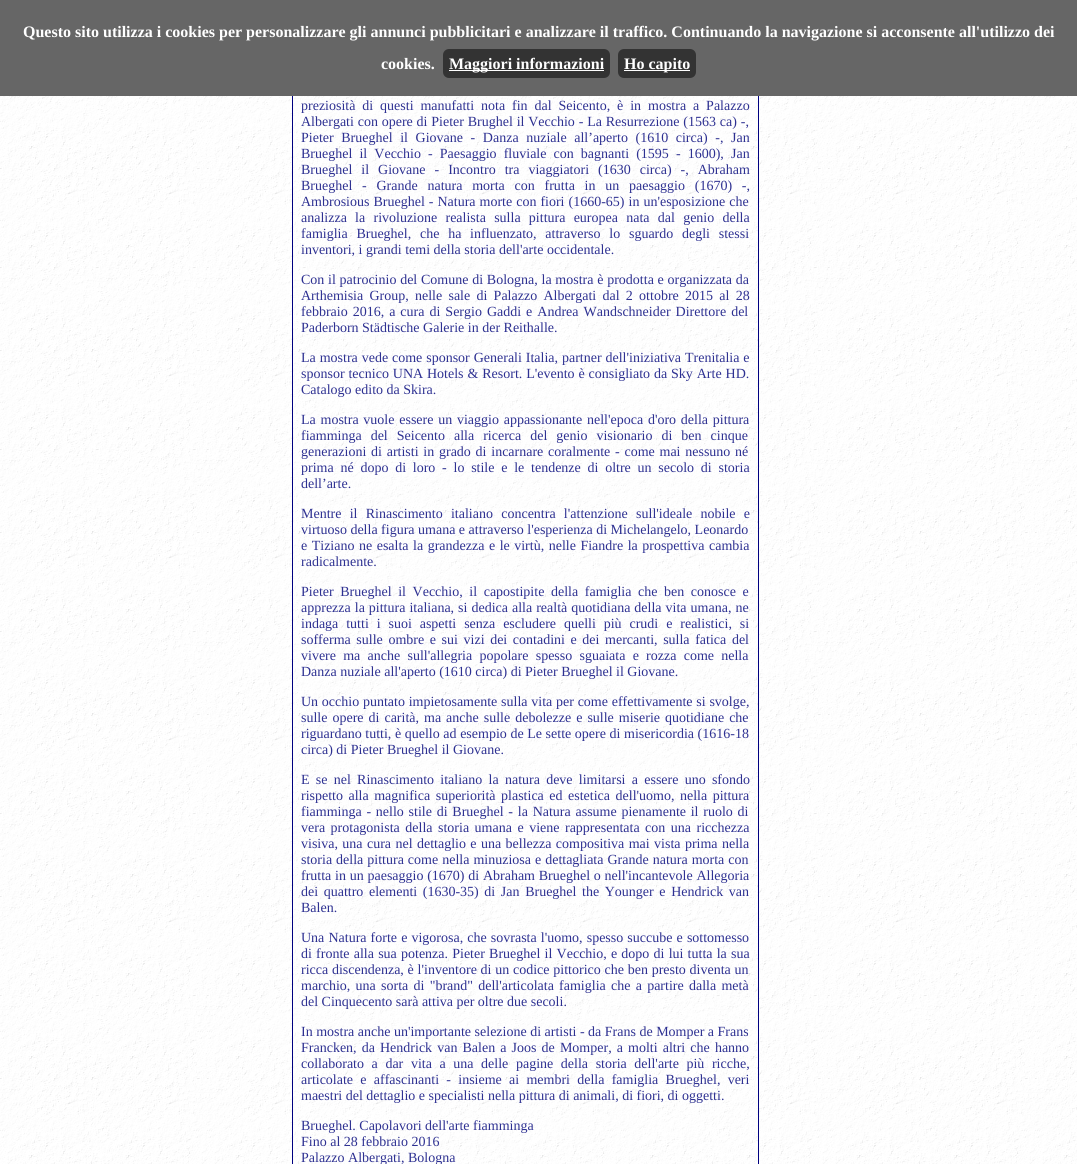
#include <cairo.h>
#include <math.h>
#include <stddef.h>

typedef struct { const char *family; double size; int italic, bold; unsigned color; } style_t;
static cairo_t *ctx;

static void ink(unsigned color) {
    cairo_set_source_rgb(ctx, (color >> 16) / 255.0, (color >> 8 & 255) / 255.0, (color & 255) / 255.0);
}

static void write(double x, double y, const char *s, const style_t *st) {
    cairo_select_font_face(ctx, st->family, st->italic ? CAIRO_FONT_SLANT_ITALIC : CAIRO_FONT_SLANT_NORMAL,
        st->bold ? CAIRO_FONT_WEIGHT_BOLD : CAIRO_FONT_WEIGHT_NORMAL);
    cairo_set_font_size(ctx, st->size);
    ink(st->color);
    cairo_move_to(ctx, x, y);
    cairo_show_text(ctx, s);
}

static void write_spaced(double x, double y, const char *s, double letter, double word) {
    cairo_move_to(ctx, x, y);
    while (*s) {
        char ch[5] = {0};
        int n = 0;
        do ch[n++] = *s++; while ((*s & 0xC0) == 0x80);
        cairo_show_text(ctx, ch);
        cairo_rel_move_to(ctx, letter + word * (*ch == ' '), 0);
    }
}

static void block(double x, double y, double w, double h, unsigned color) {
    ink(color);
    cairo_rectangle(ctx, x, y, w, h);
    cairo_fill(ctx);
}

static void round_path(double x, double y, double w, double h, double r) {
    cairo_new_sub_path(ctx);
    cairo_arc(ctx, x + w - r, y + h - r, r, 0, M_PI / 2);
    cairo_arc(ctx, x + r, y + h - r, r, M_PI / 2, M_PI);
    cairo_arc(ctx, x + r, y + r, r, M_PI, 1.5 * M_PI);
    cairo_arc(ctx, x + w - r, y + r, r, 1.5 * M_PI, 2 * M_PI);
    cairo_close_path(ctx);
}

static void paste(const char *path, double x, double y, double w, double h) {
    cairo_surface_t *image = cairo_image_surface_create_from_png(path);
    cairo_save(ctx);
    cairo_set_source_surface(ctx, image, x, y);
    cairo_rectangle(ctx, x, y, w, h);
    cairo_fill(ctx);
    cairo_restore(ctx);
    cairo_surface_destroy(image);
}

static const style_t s1 = {"Liberation Serif", 16, 0, 1, 0xffffff};
static const style_t s2 = {"Liberation Serif", 14, 0, 0, 0x2e3192};

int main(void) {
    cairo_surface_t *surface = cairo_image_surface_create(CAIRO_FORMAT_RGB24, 1077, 1164);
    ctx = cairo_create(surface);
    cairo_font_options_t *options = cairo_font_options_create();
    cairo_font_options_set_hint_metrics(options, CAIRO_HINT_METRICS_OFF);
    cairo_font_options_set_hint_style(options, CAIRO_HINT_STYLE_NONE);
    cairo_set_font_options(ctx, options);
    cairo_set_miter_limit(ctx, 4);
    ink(0xffffff);
    cairo_paint(ctx);
    paste("pic1.png", 0, 96, 1077, 1068);
    block(0, 0, 1077, 96, 0x666666);
    write(23, 37, "Questo sito utilizza i cookies per personalizzare gli annunci pubblicitari e analizzare il traffico. Continuando la navigazione si acconsente all'utilizzo dei", &s1);
    write(381, 69, "cookies.", &s1);
    ink(0x333333);
    round_path(443, 49, 167, 29, 6);
    cairo_fill(ctx);
    block(449, 70, 155, 1, 0xffffff);
    write(449, 69, "Maggiori informazioni", &s1);
    ink(0x333333);
    round_path(618, 49, 78, 29, 6);
    cairo_fill(ctx);
    block(624, 70, 66, 1, 0xffffff);
    write(624, 69, "Ho capito", &s1);
    block(292, 96, 1, 1068, 0x000080);
    cairo_select_font_face(ctx, "Liberation Serif", CAIRO_FONT_SLANT_NORMAL, CAIRO_FONT_WEIGHT_NORMAL);
    cairo_set_font_size(ctx, 14);
    ink(0x2e3192);
    write_spaced(301, 110, "preziosità di questi manufatti nota fin dal Seicento, è in mostra a Palazzo", 0, 3.4);
    write_spaced(301, 126, "Albergati con opere di Pieter Brughel il Vecchio - La Resurrezione (1563 ca) -,", 0, 0.3);
    write_spaced(301, 142, "Pieter Brueghel il Giovane - Danza nuziale allʼaperto (1610 circa) -, Jan", 0, 4.1);
    write_spaced(301, 158, "Brueghel il Vecchio - Paesaggio fluviale con bagnanti (1595 - 1600), Jan", 0, 3.6);
    write_spaced(301, 174, "Brueghel il Giovane - Incontro tra viaggiatori (1630 circa) -, Abraham", 0, 5.5);
    write_spaced(301, 190, "Brueghel - Grande natura morta con frutta in un paesaggio (1670) -,", 0, 6.25);
    write_spaced(301, 206, "Ambrosious Brueghel - Natura morte con fiori (1660-65) in un'esposizione che", 0, 0.5);
    write_spaced(301, 222, "analizza la rivoluzione realista sulla pittura europea nata dal genio della", 0, 4.75);
    write_spaced(301, 238, "famiglia Brueghel, che ha influenzato, attraverso lo sguardo degli stessi", 0, 5.25);
    write(301, 254, "inventori, i grandi temi della storia dell'arte occidentale.", &s2);
    write_spaced(301, 284, "Con il patrocinio del Comune di Bologna, la mostra è prodotta e organizzata da", 0, 0.25);
    write_spaced(301, 300, "Arthemisia Group, nelle sale di Palazzo Albergati dal 2 ottobre 2015 al 28", 0, 2.75);
    write_spaced(301, 316, "febbraio 2016, a cura di Sergio Gaddi e Andrea Wandschneider Direttore del", 0, 1.5);
    write(301, 332, "Paderborn Städtische Galerie in der Reithalle.", &s2);
    write_spaced(301, 362, "La mostra vede come sponsor Generali Italia, partner dell'iniziativa Trenitalia e", 0, 0.4);
    write_spaced(301, 378, "sponsor tecnico UNA Hotels & Resort. L'evento è consigliato da Sky Arte HD.", 0, 0.4);
    write(301, 394, "Catalogo edito da Skira.", &s2);
    write_spaced(301, 424, "La mostra vuole essere un viaggio appassionante nell'epoca d'oro della pittura", 0, 1.25);
    write_spaced(301, 440, "fiamminga del Seicento alla ricerca del genio visionario di ben cinque", 0, 5.5);
    write_spaced(301, 456, "generazioni di artisti in grado di incarnare coralmente - come mai nessuno né", 0, 1.25);
    write_spaced(301, 472, "prima né dopo di loro - lo stile e le tendenze di oltre un secolo di storia", 0, 3.25);
    write(301, 488, "dellʼarte.", &s2);
    write_spaced(301, 518, "Mentre il Rinascimento italiano concentra l'attenzione sull'ideale nobile e", 0, 4.75);
    write(301, 534, "virtuoso della figura umana e attraverso l'esperienza di Michelangelo, Leonardo", &s2);
    write_spaced(301, 550, "e Tiziano ne esalta la grandezza e le virtù, nelle Fiandre la prospettiva cambia", 0, 1);
    write(301, 566, "radicalmente.", &s2);
    write_spaced(301, 596, "Pieter Brueghel il Vecchio, il capostipite della famiglia che ben conosce e", 0, 3.1);
    write_spaced(301, 612, "apprezza la pittura italiana, si dedica alla realtà quotidiana della vita umana, ne", 0, 0.5);
    write_spaced(301, 628, "indaga tutti i suoi aspetti senza escludere quelli più crudi e realistici, si", 0, 4.4);
    write_spaced(301, 644, "sofferma sulle ombre e sui vizi dei contadini e dei mercanti, sulla fatica del", 0, 2.1);
    write_spaced(301, 660, "vivere ma anche sull'allegria popolare spesso sguaiata e rozza come nella", 0, 3.75);
    write(301, 676, "Danza nuziale all'aperto (1610 circa) di Pieter Brueghel il Giovane.", &s2);
    write_spaced(301, 706, "Un occhio puntato impietosamente sulla vita per come effettivamente si svolge,", 0, 0.25);
    write_spaced(301, 722, "sulle opere di carità, ma anche sulle debolezze e sulle miserie quotidiane che", 0, 1.5);
    write_spaced(301, 738, "riguardano tutti, è quello ad esempio de Le sette opere di misericordia (1616-18", 0, 0.1);
    write(301, 754, "circa) di Pieter Brueghel il Giovane.", &s2);
    write_spaced(301, 784, "E se nel Rinascimento italiano la natura deve limitarsi a essere uno sfondo", 0, 2.75);
    write_spaced(301, 800, "rispetto alla magnifica superiorità plastica ed estetica dell'uomo, nella pittura", 0, 2);
    write_spaced(301, 816, "fiamminga - nello stile di Brueghel - la Natura assume pienamente il ruolo di", 0, 1.25);
    write_spaced(301, 832, "vera protagonista della storia umana e viene rappresentata con una ricchezza", 0, 2);
    write_spaced(301, 848, "visiva, una cura nel dettaglio e una bellezza compositiva mai vista prima nella", 0, 0.9);
    write_spaced(301, 864, "storia della pittura come nella minuziosa e dettagliata Grande natura morta con", 0, 0.5);
    write_spaced(301, 880, "frutta in un paesaggio (1670) di Abraham Brueghel o nell'incantevole Allegoria", 0, 0.25);
    write_spaced(301, 896, "dei quattro elementi (1630-35) di Jan Brueghel the Younger e Hendrick van", 0, 2.1);
    write(301, 912, "Balen.", &s2);
    write_spaced(301, 942, "Una Natura forte e vigorosa, che sovrasta l'uomo, spesso succube e sottomesso", 0, 0.6);
    write_spaced(301, 958, "di fronte alla sua potenza. Pieter Brueghel il Vecchio, e dopo di lui tutta la sua", 0, 0.7);
    write_spaced(301, 974, "ricca discendenza, è l'inventore di un codice pittorico che ben presto diventa un", 0, 0.25);
    write_spaced(301, 990, "marchio, una sorta di \"brand\" dell'articolata famiglia che a partire dalla metà", 0, 1.75);
    write(301, 1006, "del Cinquecento sarà attiva per oltre due secoli.", &s2);
    write(301, 1036, "In mostra anche un'importante selezione di artisti - da Frans de Momper a Frans", &s2);
    write_spaced(301, 1052, "Francken, da Hendrick van Balen a Joos de Momper, a molti altri che hanno", 0, 1.6);
    write_spaced(301, 1068, "collaborato a dar vita a una delle pagine della storia dell'arte più ricche,", 0, 4.1);
    write_spaced(301, 1084, "articolate e affascinanti - insieme ai membri della famiglia Brueghel, veri", 0, 3.75);
    write(301, 1100, "maestri del dettaglio e specialisti nella pittura di animali, di fiori, di oggetti.", &s2);
    write(301, 1130, "Brueghel. Capolavori dell'arte fiamminga", &s2);
    write(301, 1146, "Fino al 28 febbraio 2016", &s2);
    write(301, 1162, "Palazzo Albergati, Bologna", &s2);
    block(758, 96, 1, 1068, 0x000080);
    cairo_surface_write_to_png(surface, "screenshot.png");
    cairo_font_options_destroy(options);
    cairo_destroy(ctx);
    cairo_surface_destroy(surface);
    return 0;
}
